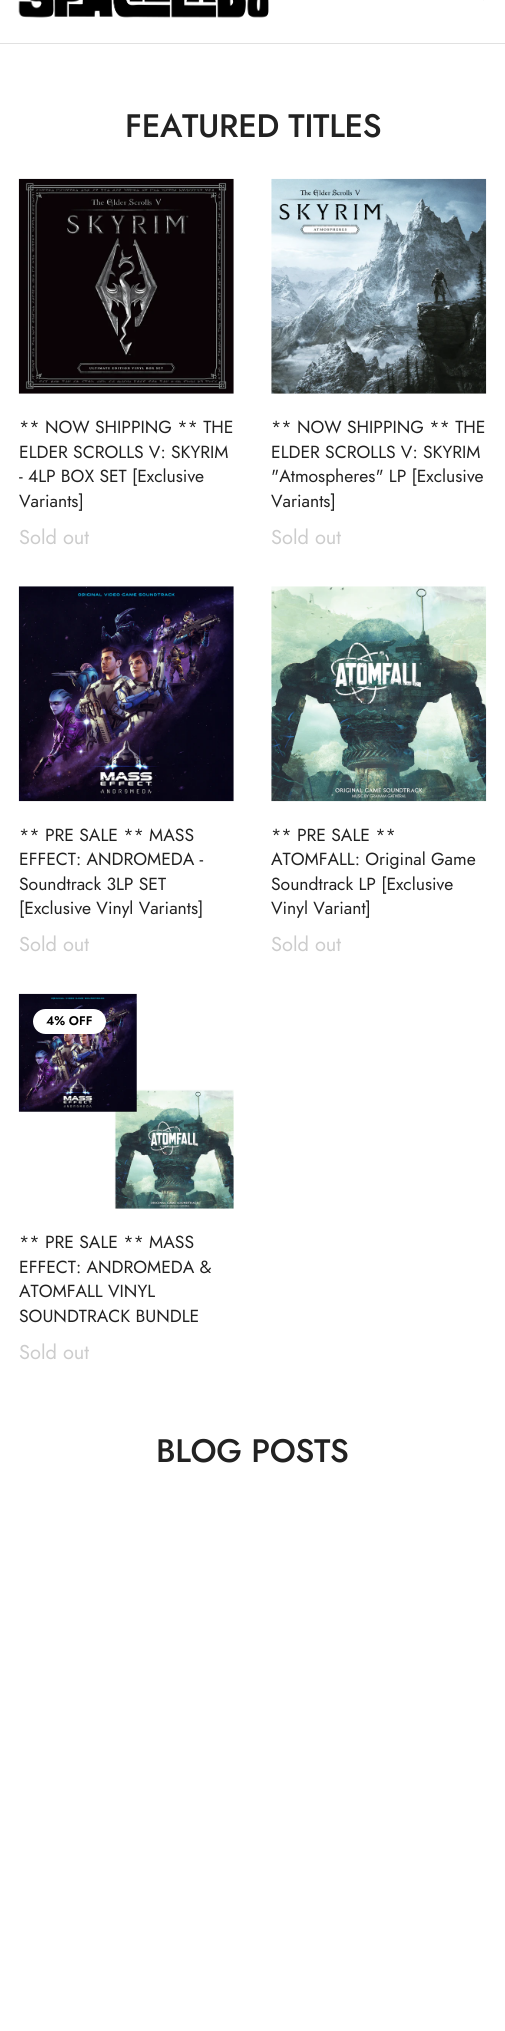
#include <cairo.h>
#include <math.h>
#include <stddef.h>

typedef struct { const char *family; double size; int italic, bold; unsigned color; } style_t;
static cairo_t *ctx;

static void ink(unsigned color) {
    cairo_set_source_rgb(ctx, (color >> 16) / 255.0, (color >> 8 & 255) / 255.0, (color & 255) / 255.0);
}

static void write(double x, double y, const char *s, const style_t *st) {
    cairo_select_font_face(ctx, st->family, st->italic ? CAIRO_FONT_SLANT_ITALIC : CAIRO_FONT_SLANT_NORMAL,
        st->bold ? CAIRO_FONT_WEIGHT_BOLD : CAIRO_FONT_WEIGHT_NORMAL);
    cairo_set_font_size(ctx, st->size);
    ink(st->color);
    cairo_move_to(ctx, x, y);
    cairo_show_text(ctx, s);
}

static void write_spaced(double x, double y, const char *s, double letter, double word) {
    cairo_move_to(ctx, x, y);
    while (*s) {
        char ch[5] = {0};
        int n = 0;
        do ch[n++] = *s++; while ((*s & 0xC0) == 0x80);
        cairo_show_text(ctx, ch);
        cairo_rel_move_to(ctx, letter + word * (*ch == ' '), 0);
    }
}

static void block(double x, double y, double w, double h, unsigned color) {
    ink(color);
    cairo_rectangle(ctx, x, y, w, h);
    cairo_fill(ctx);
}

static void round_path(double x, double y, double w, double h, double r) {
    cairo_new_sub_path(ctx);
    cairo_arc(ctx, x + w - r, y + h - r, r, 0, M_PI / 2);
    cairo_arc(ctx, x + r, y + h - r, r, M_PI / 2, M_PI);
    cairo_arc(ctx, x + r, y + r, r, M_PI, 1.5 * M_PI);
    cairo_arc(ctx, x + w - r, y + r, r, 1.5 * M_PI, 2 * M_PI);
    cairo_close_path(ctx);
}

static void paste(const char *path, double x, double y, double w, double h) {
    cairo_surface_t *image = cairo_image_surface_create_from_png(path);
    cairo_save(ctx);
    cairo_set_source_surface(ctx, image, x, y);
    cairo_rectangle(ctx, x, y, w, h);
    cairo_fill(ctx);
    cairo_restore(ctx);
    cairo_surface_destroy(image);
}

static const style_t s1 = {"Jost", 17.5, 0, 0, 0x222222};
static const style_t s2 = {"Jost", 20, 0, 0, 0xcccccc};
static const style_t s3 = {"Jost SemiBold", 12.5, 0, 0, 0x000000};

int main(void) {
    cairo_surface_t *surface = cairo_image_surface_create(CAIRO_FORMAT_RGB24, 505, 2031);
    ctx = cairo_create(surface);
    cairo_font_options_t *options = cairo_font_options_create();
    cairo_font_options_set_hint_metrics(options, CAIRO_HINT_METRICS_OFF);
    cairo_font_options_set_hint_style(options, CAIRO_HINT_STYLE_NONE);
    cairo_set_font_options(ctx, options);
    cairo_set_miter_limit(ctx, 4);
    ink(0xffffff);
    cairo_paint(ctx);
    paste("pic1.png", 18, 0, 251, 18);
    cairo_new_path(ctx);
    cairo_move_to(ctx, 484.5, -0.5);
    cairo_line_to(ctx, 476, -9);
    ink(0x191919);
    cairo_set_line_width(ctx, 1.9);
    cairo_stroke(ctx);
    block(0, 43, 505, 1, 0xe1e1e1);
    cairo_select_font_face(ctx, "Jost Medium", CAIRO_FONT_SLANT_NORMAL, CAIRO_FONT_WEIGHT_NORMAL);
    cairo_set_font_size(ctx, 32.5);
    ink(0x222222);
    write_spaced(125, 137, "FEATURED TITLES", -0.3, 0);
    paste("pic2.png", 18, 178, 216, 216);
    write(19, 433, "** NOW SHIPPING ** THE", &s1);
    write(19, 458, "ELDER SCROLLS V: SKYRIM", &s1);
    write(19, 482, "- 4LP BOX SET [Exclusive", &s1);
    write(19, 507, "Variants]", &s1);
    write(19, 544, "Sold out", &s2);
    paste("pic3.png", 271, 178, 216, 216);
    write(271, 433, "** NOW SHIPPING ** THE", &s1);
    write(271, 458, "ELDER SCROLLS V: SKYRIM", &s1);
    write(271, 482, "\"Atmospheres\" LP [Exclusive", &s1);
    write(271, 507, "Variants]", &s1);
    write(271, 544, "Sold out", &s2);
    paste("pic4.png", 18, 586, 216, 216);
    write(19, 841, "** PRE SALE ** MASS", &s1);
    write(19, 865, "EFFECT: ANDROMEDA -", &s1);
    write(19, 890, "Soundtrack 3LP SET", &s1);
    write(19, 914, "[Exclusive Vinyl Variants]", &s1);
    write(19, 951, "Sold out", &s2);
    paste("pic5.png", 271, 586, 216, 216);
    write(271, 841, "** PRE SALE **", &s1);
    write(271, 865, "ATOMFALL: Original Game", &s1);
    write(271, 890, "Soundtrack LP [Exclusive", &s1);
    write(271, 914, "Vinyl Variant]", &s1);
    write(271, 951, "Sold out", &s2);
    paste("pic6.png", 18, 993, 216, 216);
    ink(0xffffff);
    round_path(33, 1009, 73, 25, 12.5);
    cairo_fill(ctx);
    write(46, 1025, "4% OFF", &s3);
    write(19, 1248, "** PRE SALE ** MASS", &s1);
    write(19, 1273, "EFFECT: ANDROMEDA &", &s1);
    write(19, 1297, "ATOMFALL VINYL", &s1);
    write(19, 1322, "SOUNDTRACK BUNDLE", &s1);
    write(19, 1359, "Sold out", &s2);
    cairo_select_font_face(ctx, "Jost Medium", CAIRO_FONT_SLANT_NORMAL, CAIRO_FONT_WEIGHT_NORMAL);
    cairo_set_font_size(ctx, 32.5);
    ink(0x222222);
    write_spaced(156, 1462, "BLOG POSTS", -0.3, 0);
    cairo_surface_write_to_png(surface, "screenshot.png");
    cairo_font_options_destroy(options);
    cairo_destroy(ctx);
    cairo_surface_destroy(surface);
    return 0;
}
